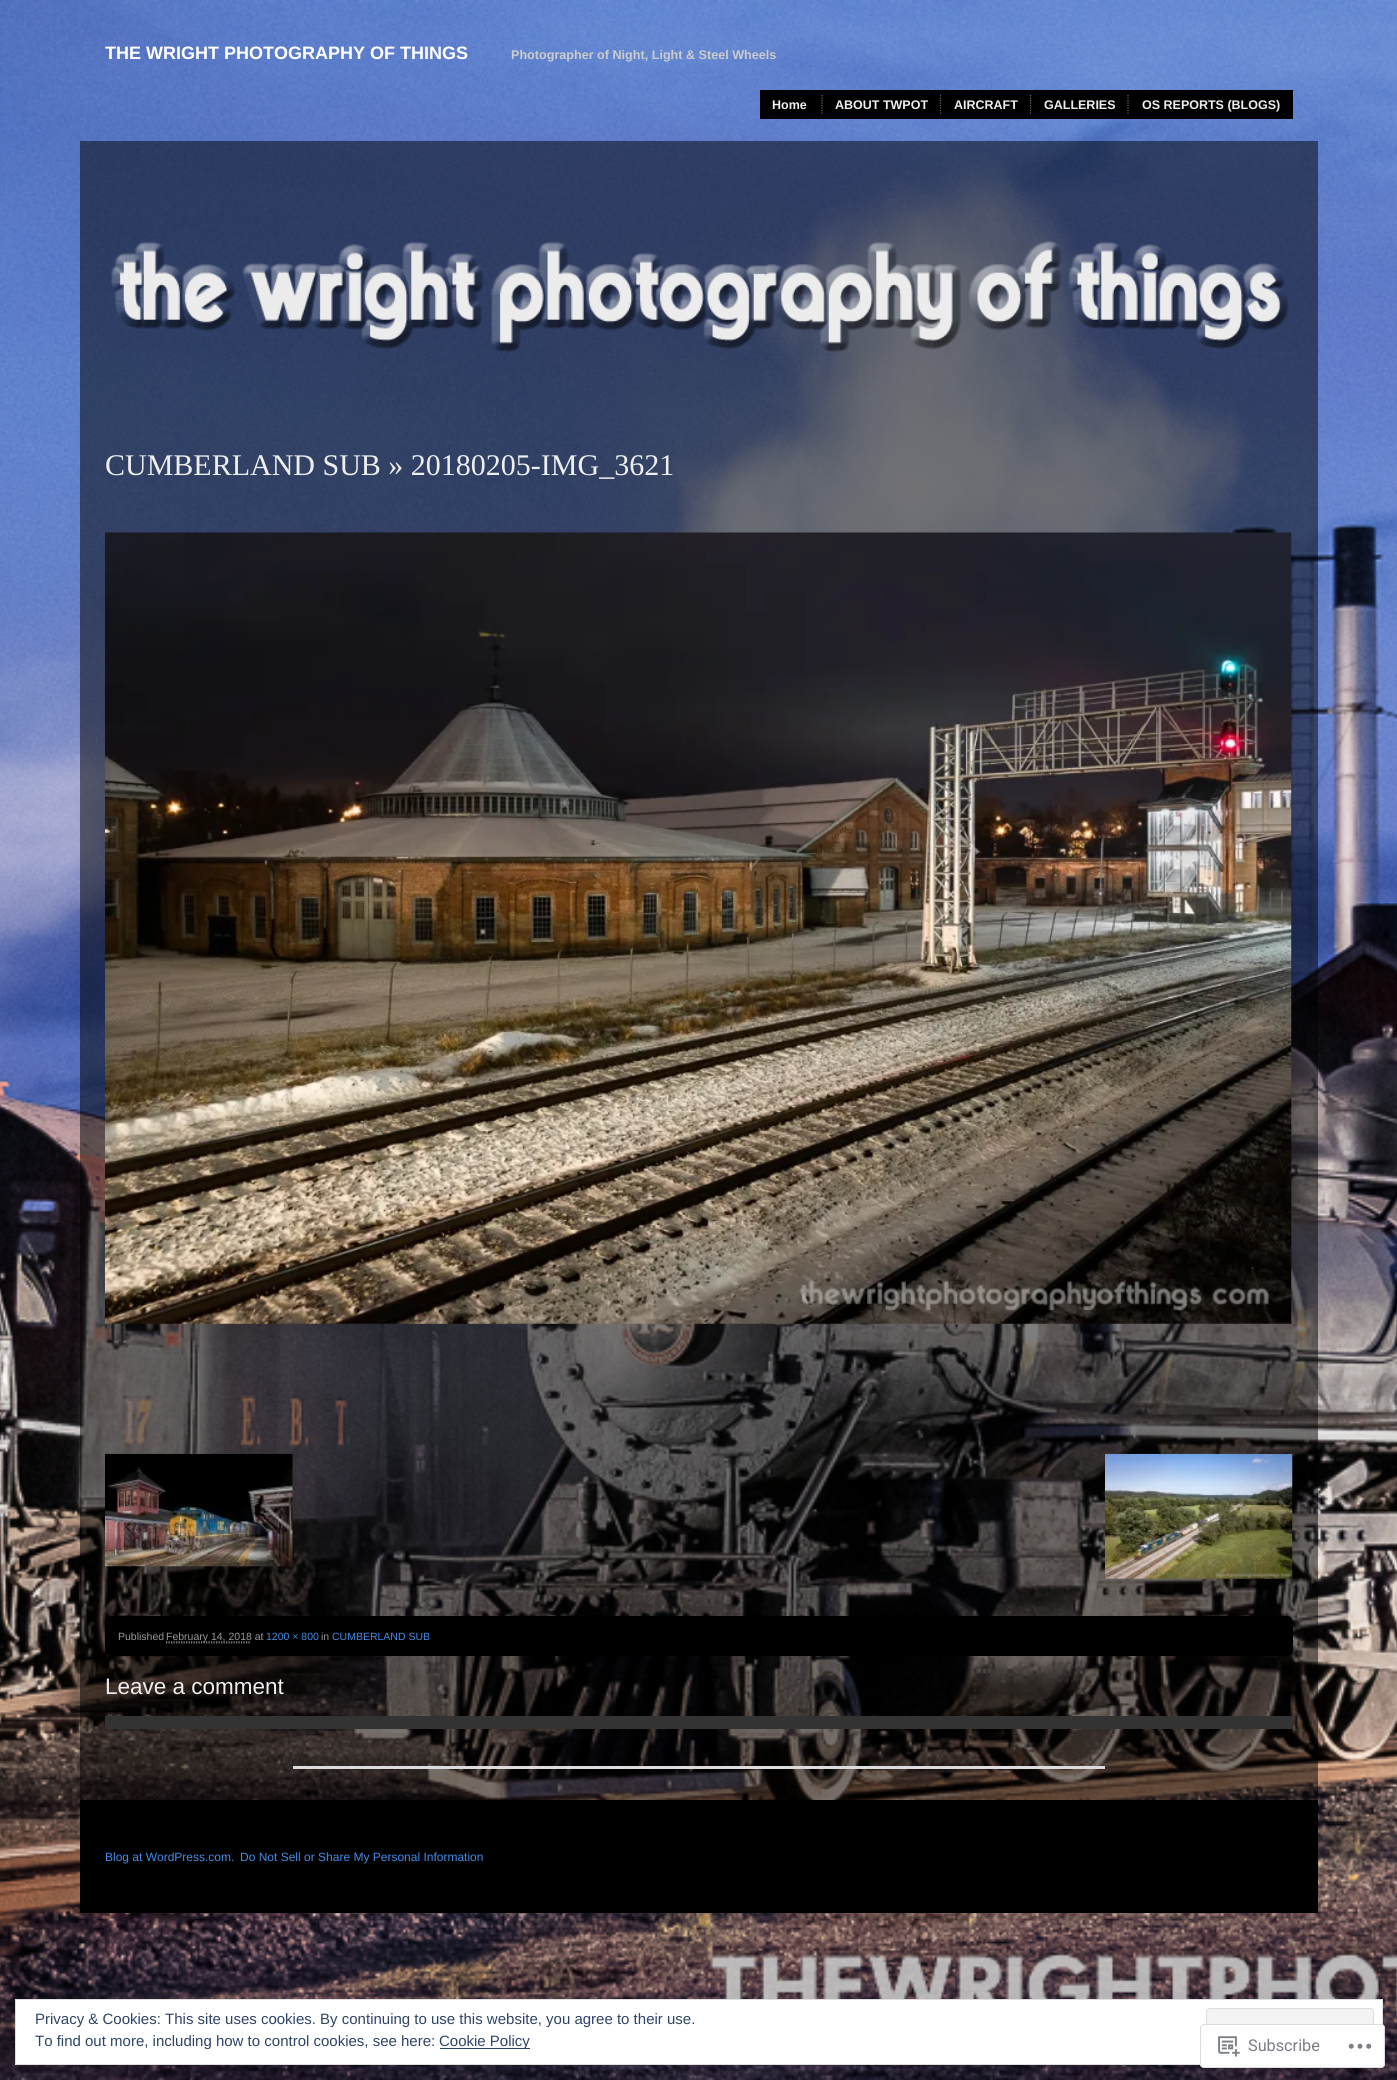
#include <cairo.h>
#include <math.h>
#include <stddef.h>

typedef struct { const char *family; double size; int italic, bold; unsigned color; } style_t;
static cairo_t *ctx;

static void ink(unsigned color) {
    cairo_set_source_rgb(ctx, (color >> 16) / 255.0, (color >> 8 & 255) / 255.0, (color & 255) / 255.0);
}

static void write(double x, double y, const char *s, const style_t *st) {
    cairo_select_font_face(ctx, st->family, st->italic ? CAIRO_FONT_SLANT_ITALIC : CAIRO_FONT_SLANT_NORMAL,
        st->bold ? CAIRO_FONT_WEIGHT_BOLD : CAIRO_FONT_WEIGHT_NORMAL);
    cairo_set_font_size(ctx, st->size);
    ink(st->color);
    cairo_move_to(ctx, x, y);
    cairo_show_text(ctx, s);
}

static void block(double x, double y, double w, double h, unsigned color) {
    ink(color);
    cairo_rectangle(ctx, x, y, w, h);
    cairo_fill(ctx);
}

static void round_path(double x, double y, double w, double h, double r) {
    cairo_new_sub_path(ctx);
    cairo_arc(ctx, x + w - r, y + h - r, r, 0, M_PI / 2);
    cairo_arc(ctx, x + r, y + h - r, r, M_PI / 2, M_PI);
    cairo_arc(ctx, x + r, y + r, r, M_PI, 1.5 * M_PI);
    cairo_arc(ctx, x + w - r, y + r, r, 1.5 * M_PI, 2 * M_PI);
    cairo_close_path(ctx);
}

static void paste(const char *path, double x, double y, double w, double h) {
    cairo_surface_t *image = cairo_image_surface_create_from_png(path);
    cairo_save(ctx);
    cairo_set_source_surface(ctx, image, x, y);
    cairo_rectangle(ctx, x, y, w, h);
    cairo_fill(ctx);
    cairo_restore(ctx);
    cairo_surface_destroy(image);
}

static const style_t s1 = {"Liberation Sans", 18, 0, 1, 0xffffff};
static const style_t s2 = {"Liberation Sans", 12.6, 0, 1, 0xcccccc};
static const style_t s3 = {"Liberation Sans", 12.5, 0, 1, 0xeeeeee};
static const style_t s4 = {"Liberation Serif", 30, 0, 0, 0xeeeeee};
static const style_t s5 = {"Liberation Sans", 10.5, 0, 0, 0x999999};
static const style_t s6 = {"Liberation Sans", 10.5, 0, 0, 0x428ce7};
static const style_t s7 = {"Liberation Sans", 22.5, 0, 0, 0xeeeeee};
static const style_t s8 = {"Liberation Sans", 12, 0, 0, 0x428ce7};
static const style_t s9 = {"Roboto", 16.25, 0, 0, 0x7a7e84};
static const style_t s10 = {"Liberation Sans", 15, 0, 0, 0x2e4467};

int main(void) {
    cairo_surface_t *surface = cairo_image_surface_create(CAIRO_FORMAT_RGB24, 1397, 2080);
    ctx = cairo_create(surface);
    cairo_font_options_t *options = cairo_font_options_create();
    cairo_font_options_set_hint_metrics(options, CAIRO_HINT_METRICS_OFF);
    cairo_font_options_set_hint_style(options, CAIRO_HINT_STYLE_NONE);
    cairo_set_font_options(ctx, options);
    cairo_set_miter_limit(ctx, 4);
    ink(0xffffff);
    cairo_paint(ctx);
    paste("pic1.png", 0, 0, 1397, 2080);
    write(105, 59, "THE WRIGHT PHOTOGRAPHY OF THINGS", &s1);
    write(511, 59, "Photographer of Night, Light & Steel Wheels", &s2);
    block(760, 90, 533, 29, 0x000000);
    cairo_new_path(ctx);
    cairo_move_to(ctx, 822, 95);
    cairo_line_to(ctx, 822, 114);
    ink(0x666666);
    cairo_set_line_width(ctx, 1.2);
    cairo_set_dash(ctx, (double[]){1.25, 1.25}, 2, 0);
    cairo_stroke(ctx);
    write(772, 109, "Home", &s3);
    cairo_new_path(ctx);
    cairo_move_to(ctx, 940.5, 95);
    cairo_line_to(ctx, 940.5, 114);
    ink(0x666666);
    cairo_stroke(ctx);
    write(835, 109, "ABOUT TWPOT", &s3);
    cairo_new_path(ctx);
    cairo_move_to(ctx, 1030.5, 95);
    cairo_line_to(ctx, 1030.5, 114);
    ink(0x666666);
    cairo_stroke(ctx);
    write(954, 109, "AIRCRAFT", &s3);
    cairo_new_path(ctx);
    cairo_move_to(ctx, 1128, 95);
    cairo_line_to(ctx, 1128, 114);
    ink(0x666666);
    cairo_stroke(ctx);
    write(1044, 109, "GALLERIES", &s3);
    write(1142, 109, "OS REPORTS (BLOGS)", &s3);
    cairo_set_source_rgba(ctx, 0, 0, 0, 0.5);
    cairo_rectangle(ctx, 80, 141, 1238, 1659);
    cairo_fill(ctx);
    paste("pic2.png", 111, 240, 1178, 112);
    write(105, 475, "CUMBERLAND SUB » 20180205-IMG_3621", &s4);
    paste("pic3.png", 105, 532, 1187, 792);
    paste("pic4.png", 105, 1453, 188, 114);
    paste("pic5.png", 1105, 1453, 188, 126);
    ink(0x000000);
    round_path(105, 1616, 1188, 40, 6);
    cairo_fill(ctx);
    write(118, 1640, "Published", &s5);
    cairo_new_path(ctx);
    cairo_move_to(ctx, 166, 1643);
    cairo_line_to(ctx, 251, 1643);
    ink(0x666666);
    cairo_stroke(ctx);
    cairo_new_path(ctx);
    cairo_move_to(ctx, 166, 1642);
    cairo_line_to(ctx, 251, 1642);
    ink(0x999999);
    cairo_stroke(ctx);
    write(166, 1640, "February 14, 2018 at", &s5);
    write(266, 1640, "1200 × 800", &s6);
    write(321, 1640, "in", &s5);
    write(332, 1640, "CUMBERLAND SUB", &s6);
    write(105, 1694, "Leave a comment", &s7);
    block(105, 1716, 1188, 13, 0x333333);
    block(293, 1766, 812, 3, 0xdcdcde);
    block(80, 1800, 1238, 113, 0x000000);
    write(105, 1861, "Blog at WordPress.com.", &s8);
    write(240, 1861, "Do Not Sell or Share My Personal Information", &s8);
    ink(0xffffff);
    cairo_rectangle(ctx, 15.5, 1999.5, 1367, 65);
    cairo_fill_preserve(ctx);
    ink(0xdedede);
    cairo_set_line_width(ctx, 1);
    cairo_set_dash(ctx, NULL, 0, 0);
    cairo_stroke(ctx);
    ink(0xf3f3f3);
    round_path(1206.5, 2008.5, 167, 47, 3.5);
    cairo_fill_preserve(ctx);
    ink(0xdedede);
    cairo_stroke(ctx);
    cairo_set_source_rgba(ctx, 1, 1, 1, 0.98);
    round_path(1200, 2024, 185, 44, 4);
    cairo_fill(ctx);
    round_path(1200.5, 2024.5, 184, 43, 3.5);
    cairo_set_source_rgba(ctx, 0.863, 0.863, 0.871, 0.98);
    cairo_stroke(ctx);
    paste("pic6.png", 1218, 2036, 22, 21);
    write(1248, 2051, "Subscribe", &s9);
    paste("pic7.png", 1348, 2043, 24, 6);
    write(35, 2024, "Privacy & Cookies: This site uses cookies. By continuing to use this website, you agree to their use.", &s10);
    write(35, 2046, "To find out more, including how to control cookies, see here:", &s10);
    block(440, 2048, 90, 1, 0x2e4467);
    write(439, 2046, "Cookie Policy", &s10);
    cairo_surface_write_to_png(surface, "screenshot.png");
    cairo_font_options_destroy(options);
    cairo_destroy(ctx);
    cairo_surface_destroy(surface);
    return 0;
}
